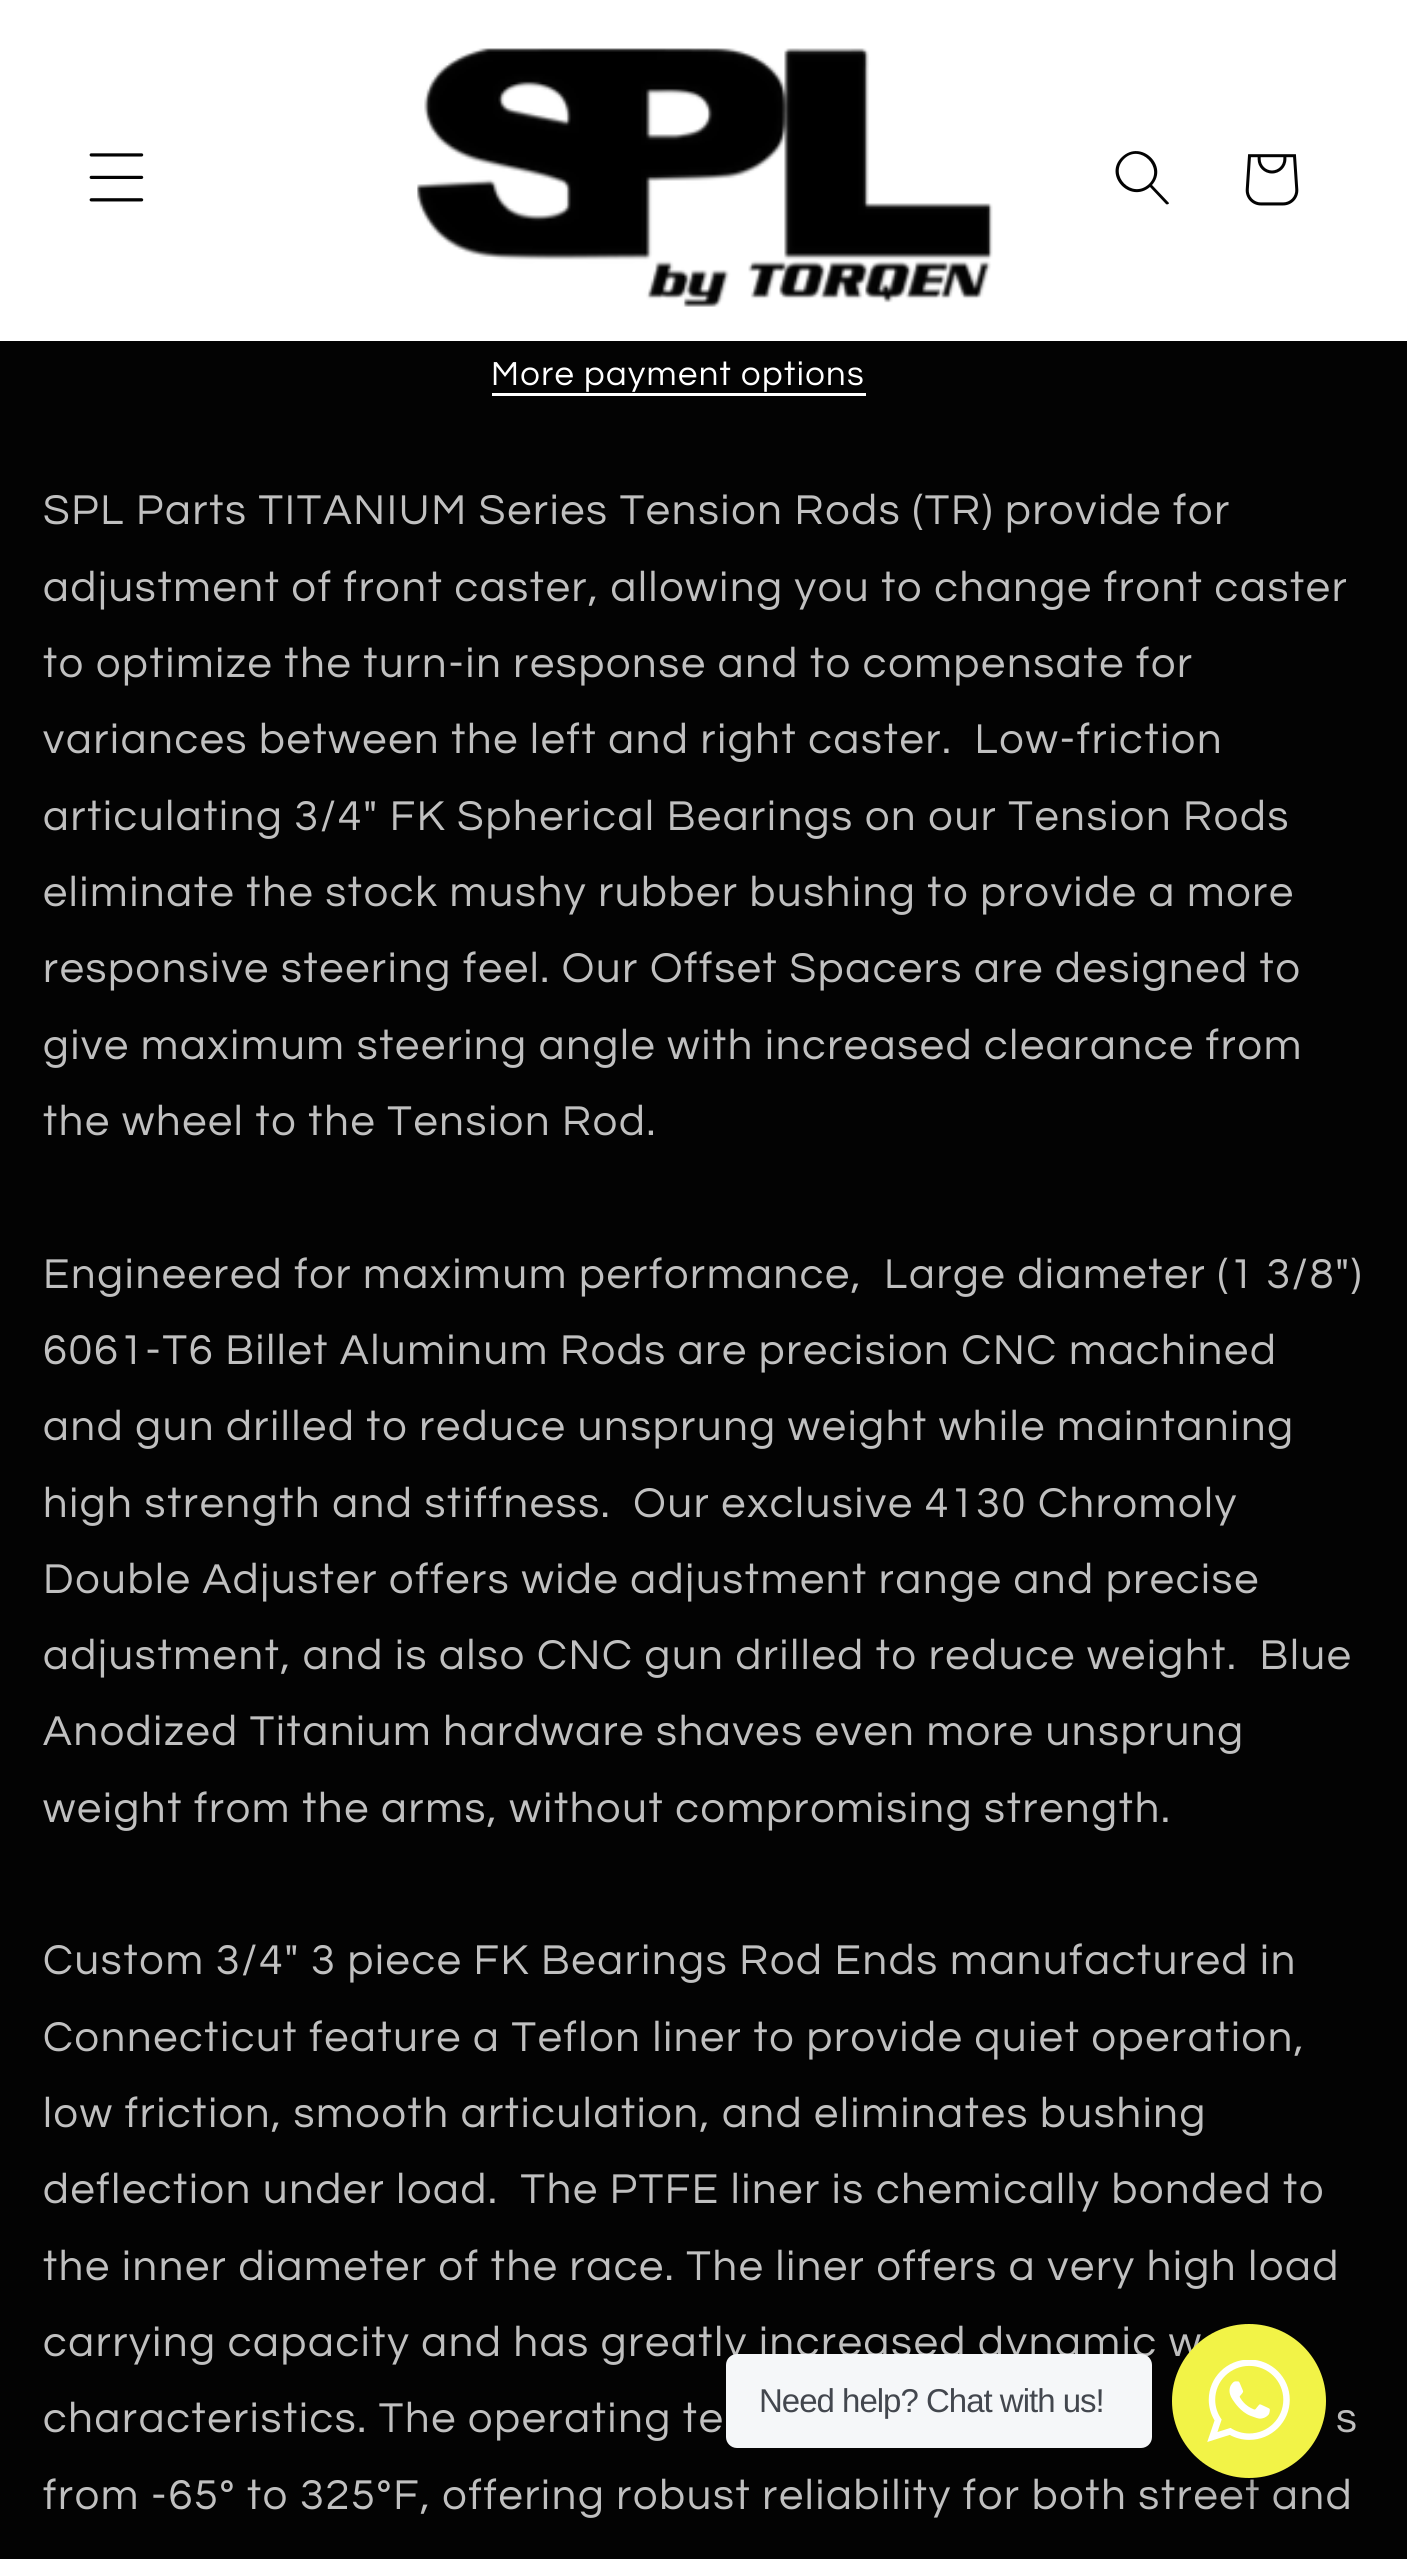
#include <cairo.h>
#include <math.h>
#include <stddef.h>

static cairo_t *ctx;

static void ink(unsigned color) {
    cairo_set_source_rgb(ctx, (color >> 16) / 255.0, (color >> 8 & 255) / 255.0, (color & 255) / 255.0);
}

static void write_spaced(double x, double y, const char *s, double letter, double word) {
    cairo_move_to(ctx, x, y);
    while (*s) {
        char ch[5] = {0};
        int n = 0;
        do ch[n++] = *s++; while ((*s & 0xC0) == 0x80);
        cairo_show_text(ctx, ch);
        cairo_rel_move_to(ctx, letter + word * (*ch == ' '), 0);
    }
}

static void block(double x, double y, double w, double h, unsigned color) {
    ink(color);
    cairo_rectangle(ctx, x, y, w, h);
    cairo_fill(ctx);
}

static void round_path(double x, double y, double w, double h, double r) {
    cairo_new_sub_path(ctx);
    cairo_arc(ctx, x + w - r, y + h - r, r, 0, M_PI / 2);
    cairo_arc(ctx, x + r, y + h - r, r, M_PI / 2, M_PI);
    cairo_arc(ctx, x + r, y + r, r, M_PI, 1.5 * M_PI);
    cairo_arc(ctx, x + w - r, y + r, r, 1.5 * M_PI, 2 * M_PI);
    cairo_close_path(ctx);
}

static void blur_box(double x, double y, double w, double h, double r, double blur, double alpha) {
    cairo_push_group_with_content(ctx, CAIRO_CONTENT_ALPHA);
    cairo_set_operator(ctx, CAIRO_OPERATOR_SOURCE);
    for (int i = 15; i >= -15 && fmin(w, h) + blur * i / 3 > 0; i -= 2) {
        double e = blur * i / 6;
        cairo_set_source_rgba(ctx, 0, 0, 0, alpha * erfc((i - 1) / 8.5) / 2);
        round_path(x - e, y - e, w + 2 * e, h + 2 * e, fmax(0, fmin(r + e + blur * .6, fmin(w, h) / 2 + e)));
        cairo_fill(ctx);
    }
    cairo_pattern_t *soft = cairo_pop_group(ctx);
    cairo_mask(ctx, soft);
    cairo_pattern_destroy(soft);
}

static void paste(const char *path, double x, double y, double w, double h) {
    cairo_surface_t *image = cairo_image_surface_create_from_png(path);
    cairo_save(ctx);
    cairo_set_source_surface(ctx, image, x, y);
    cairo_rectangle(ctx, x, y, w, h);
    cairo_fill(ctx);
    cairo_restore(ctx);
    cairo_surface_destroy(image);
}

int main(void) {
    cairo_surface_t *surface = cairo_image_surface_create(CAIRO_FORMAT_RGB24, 1407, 2559);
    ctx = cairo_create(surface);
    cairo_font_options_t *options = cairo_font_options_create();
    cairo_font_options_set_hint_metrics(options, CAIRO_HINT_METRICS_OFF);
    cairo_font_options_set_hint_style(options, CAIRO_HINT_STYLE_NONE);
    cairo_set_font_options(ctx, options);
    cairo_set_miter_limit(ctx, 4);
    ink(0x030303);
    cairo_paint(ctx);
    block(0, 0, 1407, 341, 0xffffff);
    paste("pic1.png", 89, 153, 55, 49);
    paste("pic2.png", 417, 48, 576, 259);
    ink(0x030303);
    cairo_set_fill_rule(ctx, CAIRO_FILL_RULE_EVEN_ODD);
    cairo_new_path(ctx);
    cairo_move_to(ctx, 1149, 184);
    cairo_curve_to(ctx, 1132, 200, 1108, 175, 1124, 159);
    cairo_curve_to(ctx, 1140, 143, 1165, 168, 1149, 184);
    cairo_move_to(ctx, 1150, 187);
    cairo_curve_to(ctx, 1130, 204, 1103, 175, 1122, 157);
    cairo_curve_to(ctx, 1141, 139, 1169, 166, 1152, 185);
    cairo_line_to(ctx, 1169, 203);
    cairo_curve_to(ctx, 1169, 204, 1167, 205, 1166, 204);
    cairo_close_path(ctx);
    cairo_fill(ctx);
    paste("pic3.png", 1245, 154, 54, 52);
    cairo_select_font_face(ctx, "Questrial", CAIRO_FONT_SLANT_NORMAL, CAIRO_FONT_WEIGHT_NORMAL);
    cairo_set_font_size(ctx, 34.6);
    ink(0xffffff);
    write_spaced(491, 385, "More payment options", 1.4, 0);
    block(492, 393, 374, 3, 0xffffff);
    cairo_set_font_size(ctx, 43.3);
    ink(0xc0c0c0);
    write_spaced(43, 524, "SPL Parts TITANIUM Series Tension Rods (TR) provide for", 1.73, 0);
    write_spaced(43, 601, "adjustment of front caster, allowing you to change front caster", 1.73, 0);
    write_spaced(43, 677, "to optimize the turn-in response and to compensate for", 1.73, 0);
    write_spaced(43, 753, "variances between the left and right caster.  Low-friction", 1.73, 0);
    write_spaced(43, 830, "articulating 3/4\" FK Spherical Bearings on our Tension Rods", 1.73, 0);
    write_spaced(43, 906, "eliminate the stock mushy rubber bushing to provide a more", 1.73, 0);
    write_spaced(43, 982, "responsive steering feel. Our Offset Spacers are designed to", 1.73, 0);
    write_spaced(43, 1059, "give maximum steering angle with increased clearance from", 1.73, 0);
    write_spaced(43, 1135, "the wheel to the Tension Rod.", 1.73, 0);
    write_spaced(43, 1288, "Engineered for maximum performance,  Large diameter (1 3/8\")", 1.73, 0);
    write_spaced(43, 1364, "6061-T6 Billet Aluminum Rods are precision CNC machined", 1.73, 0);
    write_spaced(43, 1440, "and gun drilled to reduce unsprung weight while maintaning", 1.73, 0);
    write_spaced(43, 1517, "high strength and stiffness.  Our exclusive 4130 Chromoly", 1.73, 0);
    write_spaced(43, 1593, "Double Adjuster offers wide adjustment range and precise", 1.73, 0);
    write_spaced(43, 1669, "adjustment, and is also CNC gun drilled to reduce weight.  Blue", 1.73, 0);
    write_spaced(43, 1745, "Anodized Titanium hardware shaves even more unsprung", 1.73, 0);
    write_spaced(43, 1822, "weight from the arms, without compromising strength.", 1.73, 0);
    write_spaced(43, 1974, "Custom 3/4\" 3 piece FK Bearings Rod Ends manufactured in", 1.73, 0);
    write_spaced(43, 2051, "Connecticut feature a Teflon liner to provide quiet operation,", 1.73, 0);
    write_spaced(43, 2127, "low friction, smooth articulation, and eliminates bushing", 1.73, 0);
    write_spaced(43, 2203, "deflection under load.  The PTFE liner is chemically bonded to", 1.73, 0);
    write_spaced(43, 2280, "the inner diameter of the race. The liner offers a very high load", 1.73, 0);
    write_spaced(43, 2356, "carrying capacity and has greatly increased dynamic w", 1.73, 0);
    write_spaced(43, 2432, "characteristics. The operating te", 1.73, 0);
    write_spaced(1336, 2432, "s", 1.73, 0);
    write_spaced(43, 2509, "from -65º to 325ºF, offering robust reliability for both street and", 1.73, 0);
    ink(0x000000);
    blur_box(1166, 2335, 165, 165, 82.5, 11, 0.14);
    ink(0xf5f7f9);
    round_path(726, 2354, 426, 94, 11);
    cairo_fill(ctx);
    cairo_select_font_face(ctx, "Liberation Sans", CAIRO_FONT_SLANT_NORMAL, CAIRO_FONT_WEIGHT_NORMAL);
    cairo_set_font_size(ctx, 33);
    ink(0x43474e);
    write_spaced(759, 2412, "Need help? Chat with us!", -1, 0);
    ink(0xf2f347);
    cairo_new_path(ctx);
    cairo_arc(ctx, 1249, 2401, 77, 0, 2 * M_PI);
    cairo_fill(ctx);
    paste("pic4.png", 1207, 2360, 83, 82);
    cairo_surface_write_to_png(surface, "screenshot.png");
    cairo_font_options_destroy(options);
    cairo_destroy(ctx);
    cairo_surface_destroy(surface);
    return 0;
}
